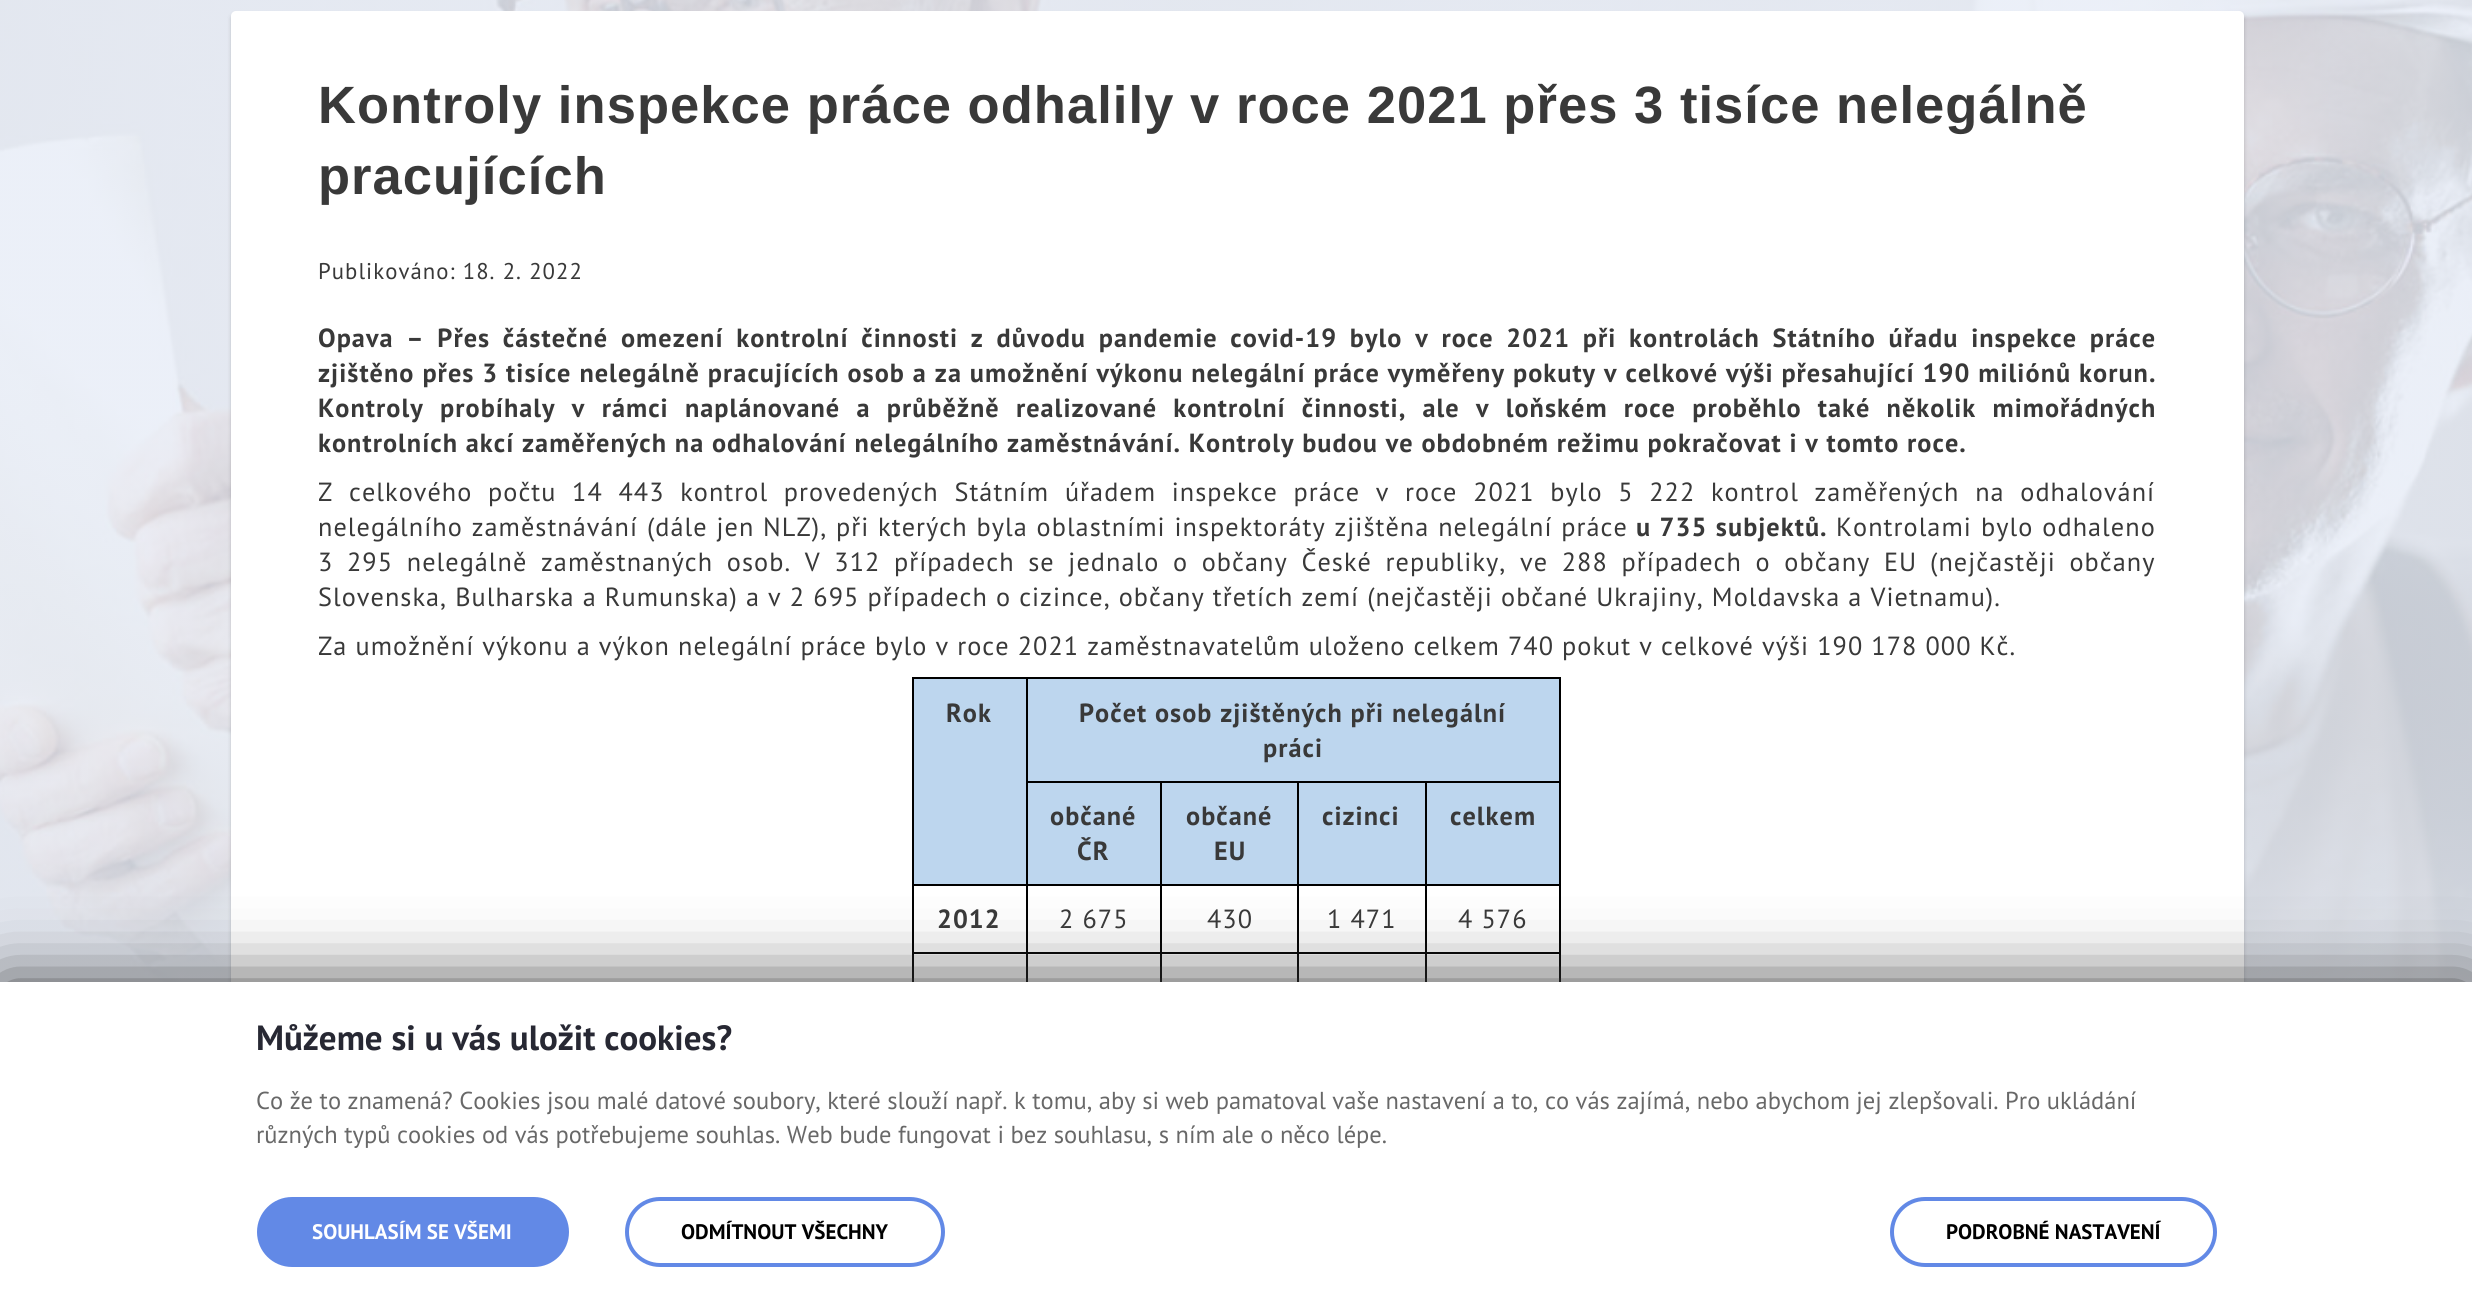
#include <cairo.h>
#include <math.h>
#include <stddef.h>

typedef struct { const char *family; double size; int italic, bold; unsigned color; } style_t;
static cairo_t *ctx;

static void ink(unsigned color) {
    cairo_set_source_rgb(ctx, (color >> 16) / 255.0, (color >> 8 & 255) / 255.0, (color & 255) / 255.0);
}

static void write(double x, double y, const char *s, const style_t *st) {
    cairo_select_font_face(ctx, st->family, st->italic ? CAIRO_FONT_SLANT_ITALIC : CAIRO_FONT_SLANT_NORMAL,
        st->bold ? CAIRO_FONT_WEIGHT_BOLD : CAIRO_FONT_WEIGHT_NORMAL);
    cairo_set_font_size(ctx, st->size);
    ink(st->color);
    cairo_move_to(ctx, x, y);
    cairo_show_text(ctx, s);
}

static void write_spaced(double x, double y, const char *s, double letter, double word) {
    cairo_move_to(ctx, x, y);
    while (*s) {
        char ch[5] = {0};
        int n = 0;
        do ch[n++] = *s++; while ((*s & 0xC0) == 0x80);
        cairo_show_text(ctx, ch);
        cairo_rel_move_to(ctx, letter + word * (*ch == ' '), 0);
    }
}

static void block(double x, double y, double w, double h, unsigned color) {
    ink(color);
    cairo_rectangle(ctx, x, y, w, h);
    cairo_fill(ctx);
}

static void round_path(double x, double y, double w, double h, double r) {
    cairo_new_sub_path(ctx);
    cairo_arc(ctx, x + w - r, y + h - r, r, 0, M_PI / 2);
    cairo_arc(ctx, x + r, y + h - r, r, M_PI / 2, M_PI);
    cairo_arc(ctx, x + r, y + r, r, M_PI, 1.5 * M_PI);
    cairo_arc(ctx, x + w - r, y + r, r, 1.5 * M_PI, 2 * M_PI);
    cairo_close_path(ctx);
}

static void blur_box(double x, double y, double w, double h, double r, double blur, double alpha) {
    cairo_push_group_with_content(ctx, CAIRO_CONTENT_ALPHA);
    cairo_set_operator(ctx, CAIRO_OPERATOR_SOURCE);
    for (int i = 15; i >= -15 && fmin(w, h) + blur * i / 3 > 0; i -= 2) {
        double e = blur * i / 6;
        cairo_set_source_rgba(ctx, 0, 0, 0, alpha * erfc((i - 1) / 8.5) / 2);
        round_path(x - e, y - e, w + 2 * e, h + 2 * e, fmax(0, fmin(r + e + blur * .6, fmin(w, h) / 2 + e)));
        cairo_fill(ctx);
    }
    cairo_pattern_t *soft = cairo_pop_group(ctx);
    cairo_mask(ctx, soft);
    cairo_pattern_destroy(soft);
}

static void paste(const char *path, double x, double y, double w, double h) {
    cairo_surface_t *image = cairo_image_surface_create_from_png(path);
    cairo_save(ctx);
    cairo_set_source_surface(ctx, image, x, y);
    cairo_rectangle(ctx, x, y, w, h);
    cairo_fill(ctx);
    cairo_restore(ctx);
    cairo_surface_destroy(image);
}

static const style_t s1 = {"PT Sans", 35, 0, 1, 0x272833};
static const style_t s2 = {"PT Sans", 24.5, 0, 0, 0x686868};
static const style_t s3 = {"PT Sans", 21, 0, 1, 0xffffff};
static const style_t s4 = {"PT Sans", 21, 0, 1, 0x000000};

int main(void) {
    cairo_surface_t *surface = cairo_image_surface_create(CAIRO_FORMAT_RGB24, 2472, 1302);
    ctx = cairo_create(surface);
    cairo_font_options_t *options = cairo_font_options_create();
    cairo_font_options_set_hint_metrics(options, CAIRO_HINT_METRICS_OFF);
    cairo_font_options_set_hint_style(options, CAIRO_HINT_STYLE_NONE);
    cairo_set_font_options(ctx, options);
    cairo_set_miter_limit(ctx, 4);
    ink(0xffffff);
    cairo_paint(ctx);
    paste("pic1.png", 0, 0, 2472, 982);
    ink(0x000000);
    blur_box(231, 14, 2013, 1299, 5, 2, 0.18);
    ink(0xffffff);
    round_path(231, 11, 2013, 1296, 5);
    cairo_fill(ctx);
    cairo_select_font_face(ctx, "Liberation Sans", CAIRO_FONT_SLANT_NORMAL, CAIRO_FONT_WEIGHT_BOLD);
    cairo_set_font_size(ctx, 52.5);
    ink(0x393939);
    write_spaced(318, 123, "Kontroly inspekce práce odhalily v roce 2021 přes 3 tisíce nelegálně", 1.05, 0);
    write_spaced(318, 194, "pracujících", 1.05, 0);
    cairo_select_font_face(ctx, "PT Sans", CAIRO_FONT_SLANT_NORMAL, CAIRO_FONT_WEIGHT_NORMAL);
    cairo_set_font_size(ctx, 22.75);
    write_spaced(318, 279, "Publikováno: 18. 2. 2022", 1.05, 0);
    cairo_select_font_face(ctx, "PT Sans", CAIRO_FONT_SLANT_NORMAL, CAIRO_FONT_WEIGHT_BOLD);
    cairo_set_font_size(ctx, 26.25);
    write_spaced(318, 347, "Opava – Přes částečné omezení kontrolní činnosti z důvodu pandemie covid-19 bylo v roce 2021 při kontrolách Státního úřadu inspekce práce", 1.05, 5);
    write_spaced(318, 382, "zjištěno přes 3 tisíce nelegálně pracujících osob a za umožnění výkonu nelegální práce vyměřeny pokuty v celkové výši přesahující 190 miliónů korun.", 1.05, 0.2);
    write_spaced(318, 417, "Kontroly probíhaly v rámci naplánované a průběžně realizované kontrolní činnosti, ale v loňském roce proběhlo také několik mimořádných", 1.05, 8.5);
    write_spaced(318, 452, "kontrolních akcí zaměřených na odhalování nelegálního zaměstnávání. Kontroly budou ve obdobném režimu pokračovat i v tomto roce.", 1.05, 0);
    cairo_select_font_face(ctx, "PT Sans", CAIRO_FONT_SLANT_NORMAL, CAIRO_FONT_WEIGHT_NORMAL);
    write_spaced(318, 501, "Z celkového počtu 14 443 kontrol provedených Státním úřadem inspekce práce v roce 2021 bylo 5 222 kontrol zaměřených na odhalování", 1.05, 7.6);
    write_spaced(318, 536, "nelegálního zaměstnávání (dále jen NLZ), při kterých byla oblastními inspektoráty zjištěna nelegální práce", 1.05, 0.75);
    cairo_select_font_face(ctx, "PT Sans", CAIRO_FONT_SLANT_NORMAL, CAIRO_FONT_WEIGHT_BOLD);
    write_spaced(1636, 536, "u 735 subjektů.", 1.05, 0.75);
    cairo_select_font_face(ctx, "PT Sans", CAIRO_FONT_SLANT_NORMAL, CAIRO_FONT_WEIGHT_NORMAL);
    write_spaced(1836, 536, "Kontrolami bylo odhaleno", 1.05, 1);
    write_spaced(318, 571, "3 295 nelegálně zaměstnaných osob. V 312 případech se jednalo o občany České republiky, ve 288 případech o občany EU", 1.05, 5.6);
    write_spaced(1930, 571, "(nejčastěji občany", 1.05, 5.6);
    write_spaced(318, 606, "Slovenska, Bulharska a Rumunska) a v 2 695 případech o cizince, občany třetích zemí (nejčastěji občané Ukrajiny, Moldavska a Vietnamu).", 1.05, 0);
    write_spaced(318, 655, "Za umožnění výkonu a výkon nelegální práce bylo v roce 2021 zaměstnavatelům uloženo celkem 740 pokut v celkové výši 190 178 000 Kč.", 1.05, 0);
    block(912, 677, 649, 2, 0x000000);
    block(1559, 677, 2, 305, 0x000000);
    block(912, 677, 2, 305, 0x000000);
    block(914, 679, 112, 205, 0xbdd6ee);
    block(1425, 952, 2, 30, 0x000000);
    block(1425, 952, 136, 2, 0x000000);
    block(1425, 884, 2, 70, 0x000000);
    block(1425, 884, 136, 2, 0x000000);
    block(1425, 781, 2, 105, 0x000000);
    block(1297, 952, 2, 30, 0x000000);
    block(1297, 952, 129, 2, 0x000000);
    block(1297, 884, 2, 70, 0x000000);
    block(1297, 884, 129, 2, 0x000000);
    block(1297, 781, 2, 105, 0x000000);
    block(1160, 952, 2, 30, 0x000000);
    block(1160, 952, 139, 2, 0x000000);
    block(1160, 884, 2, 70, 0x000000);
    block(1160, 884, 139, 2, 0x000000);
    block(1160, 781, 2, 105, 0x000000);
    block(1026, 781, 535, 2, 0x000000);
    block(1026, 952, 2, 30, 0x000000);
    block(1026, 952, 136, 2, 0x000000);
    block(1026, 884, 2, 70, 0x000000);
    block(1026, 884, 136, 2, 0x000000);
    block(1026, 677, 2, 209, 0x000000);
    block(912, 884, 115, 2, 0x000000);
    cairo_select_font_face(ctx, "PT Sans", CAIRO_FONT_SLANT_NORMAL, CAIRO_FONT_WEIGHT_BOLD);
    ink(0x393939);
    write_spaced(946, 722, "Rok", 1.05, 0);
    block(1028, 679, 531, 102, 0xbdd6ee);
    ink(0x393939);
    write_spaced(1079, 722, "Počet osob zjištěných při nelegální", 1.05, 0);
    write_spaced(1263, 757, "práci", 1.05, 0);
    block(1028, 783, 132, 101, 0xbdd6ee);
    ink(0x393939);
    write_spaced(1050, 825, "občané", 1.05, 0);
    write_spaced(1077, 860, "ČR", 1.05, 0);
    block(1162, 783, 135, 101, 0xbdd6ee);
    ink(0x393939);
    write_spaced(1186, 825, "občané", 1.05, 0);
    write_spaced(1214, 860, "EU", 1.05, 0);
    block(1299, 783, 126, 101, 0xbdd6ee);
    ink(0x393939);
    write_spaced(1322, 825, "cizinci", 1.05, 0);
    block(1427, 783, 132, 101, 0xbdd6ee);
    ink(0x393939);
    write_spaced(1450, 825, "celkem", 1.05, 0);
    block(912, 952, 115, 2, 0x000000);
    ink(0x393939);
    write_spaced(937, 928, "2012", 1.05, 0);
    cairo_select_font_face(ctx, "PT Sans", CAIRO_FONT_SLANT_NORMAL, CAIRO_FONT_WEIGHT_NORMAL);
    write_spaced(1059, 928, "2 675", 1.05, 0);
    write_spaced(1207, 928, "430", 1.05, 0);
    write_spaced(1327, 928, "1 471", 1.05, 0);
    write_spaced(1458, 928, "4 576", 1.05, 0);
    ink(0x3b3b3b);
    blur_box(0, 984, 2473, 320, 0, 35, 1);
    block(0, 982, 2472, 320, 0xffffff);
    write(256, 1050, "Můžeme si u vás uložit cookies?", &s1);
    write(256, 1109, "Co že to znamená? Cookies jsou malé datové soubory, které slouží např. k tomu, aby si web pamatoval vaše nastavení a to, co vás zajímá, nebo abychom jej zlepšovali. Pro ukládání", &s2);
    write(256, 1143, "různých typů cookies od vás potřebujeme souhlas. Web bude fungovat i bez souhlasu, s ním ale o něco lépe.", &s2);
    ink(0x6289e6);
    round_path(259, 1199, 308, 66, 33);
    cairo_fill_preserve(ctx);
    cairo_set_line_width(ctx, 4);
    cairo_stroke(ctx);
    write(312, 1239, "SOUHLASÍM SE VŠEMI", &s3);
    round_path(627, 1199, 316, 66, 33);
    ink(0x6289e6);
    cairo_stroke(ctx);
    write(681, 1239, "ODMÍTNOUT VŠECHNY", &s4);
    round_path(1892, 1199, 323, 66, 33);
    ink(0x6289e6);
    cairo_stroke(ctx);
    write(1946, 1239, "PODROBNÉ NASTAVENÍ", &s4);
    cairo_surface_write_to_png(surface, "screenshot.png");
    cairo_font_options_destroy(options);
    cairo_destroy(ctx);
    cairo_surface_destroy(surface);
    return 0;
}
